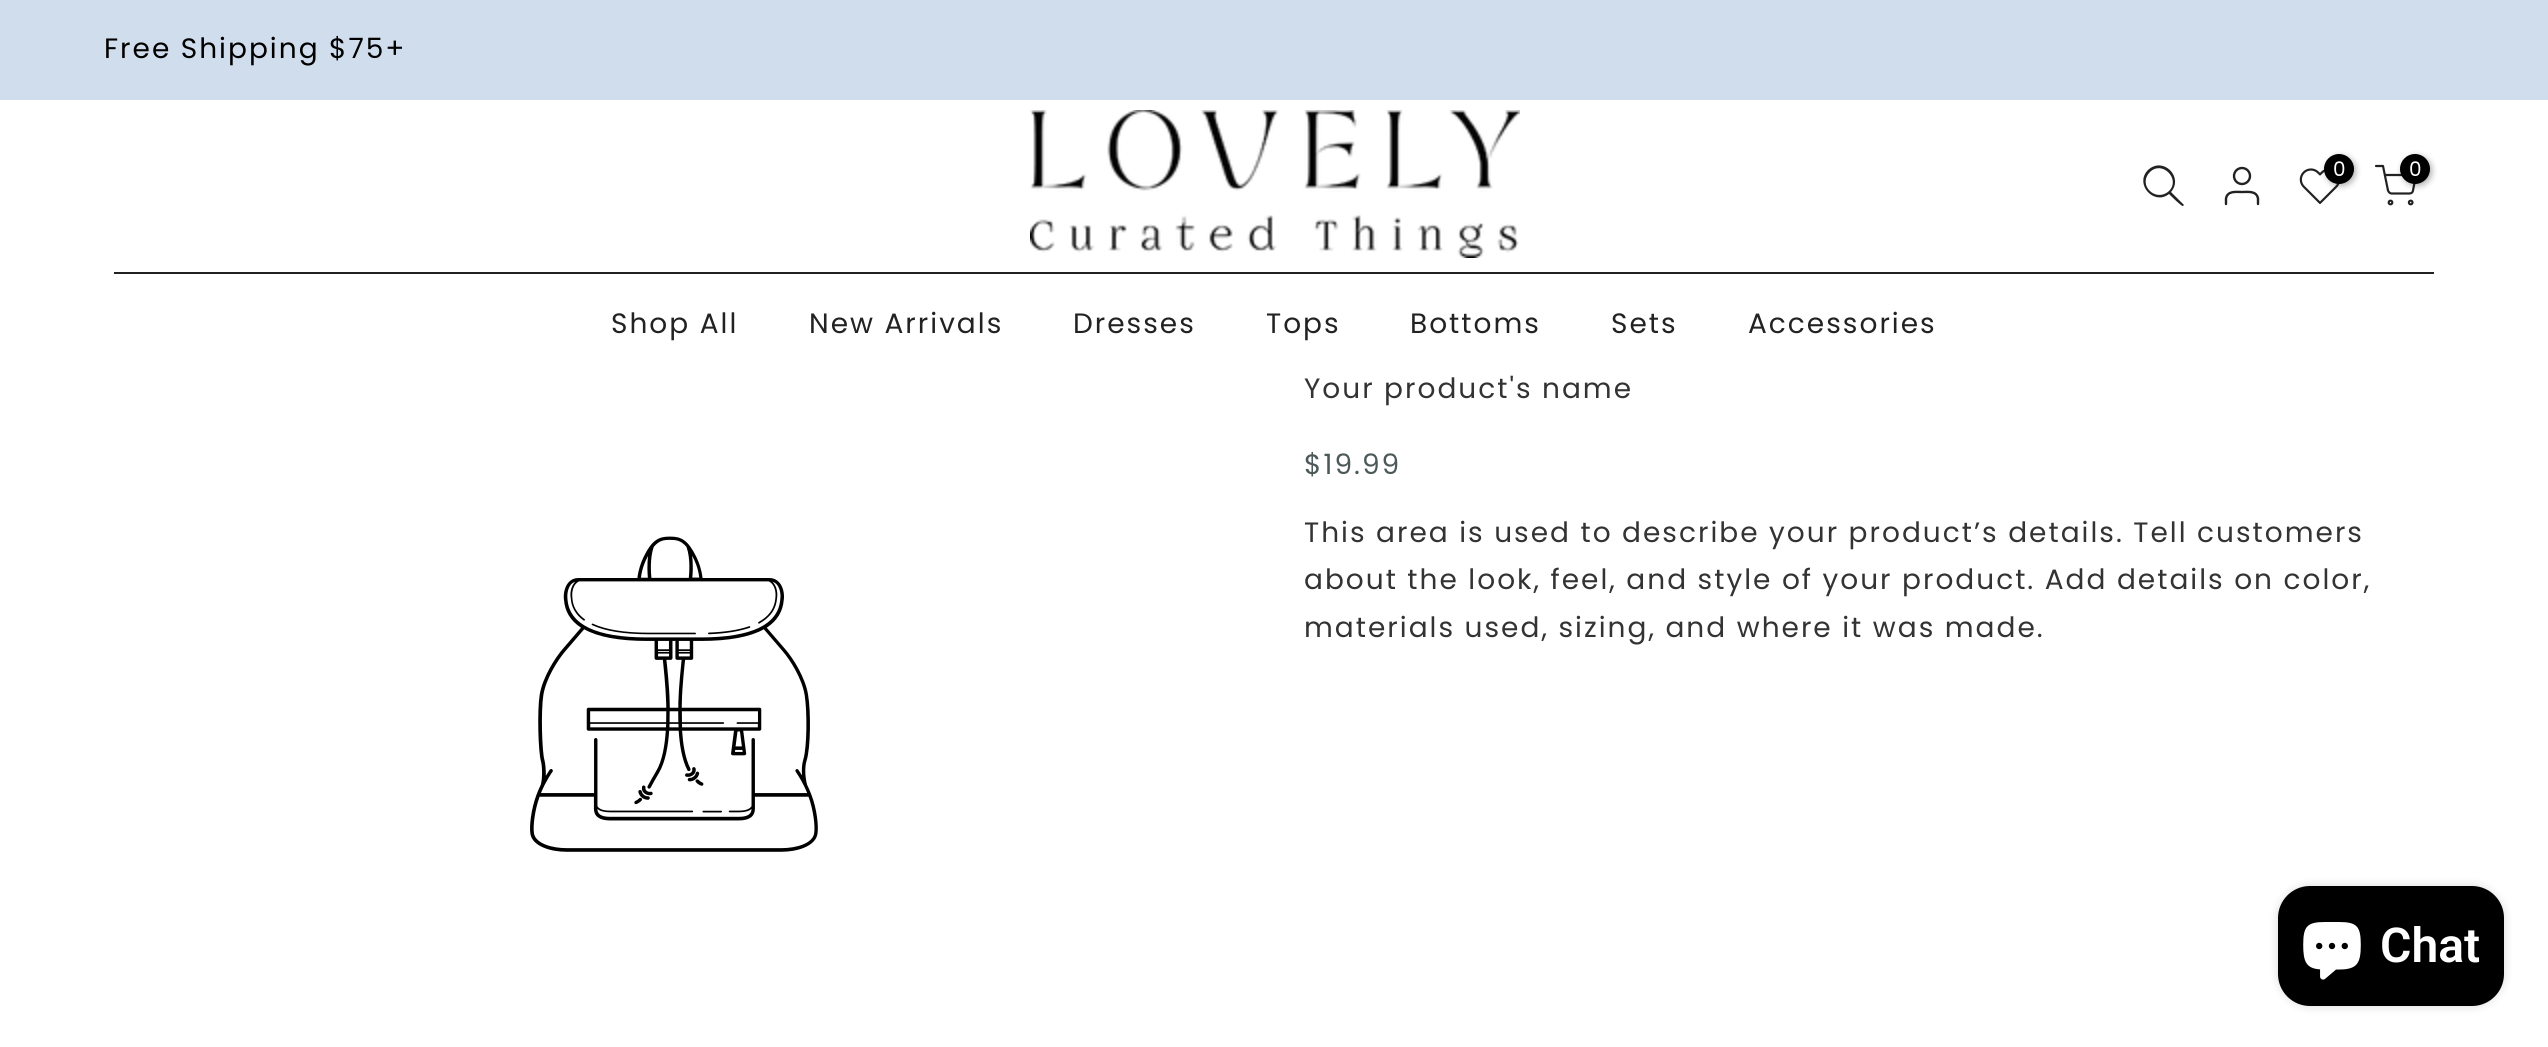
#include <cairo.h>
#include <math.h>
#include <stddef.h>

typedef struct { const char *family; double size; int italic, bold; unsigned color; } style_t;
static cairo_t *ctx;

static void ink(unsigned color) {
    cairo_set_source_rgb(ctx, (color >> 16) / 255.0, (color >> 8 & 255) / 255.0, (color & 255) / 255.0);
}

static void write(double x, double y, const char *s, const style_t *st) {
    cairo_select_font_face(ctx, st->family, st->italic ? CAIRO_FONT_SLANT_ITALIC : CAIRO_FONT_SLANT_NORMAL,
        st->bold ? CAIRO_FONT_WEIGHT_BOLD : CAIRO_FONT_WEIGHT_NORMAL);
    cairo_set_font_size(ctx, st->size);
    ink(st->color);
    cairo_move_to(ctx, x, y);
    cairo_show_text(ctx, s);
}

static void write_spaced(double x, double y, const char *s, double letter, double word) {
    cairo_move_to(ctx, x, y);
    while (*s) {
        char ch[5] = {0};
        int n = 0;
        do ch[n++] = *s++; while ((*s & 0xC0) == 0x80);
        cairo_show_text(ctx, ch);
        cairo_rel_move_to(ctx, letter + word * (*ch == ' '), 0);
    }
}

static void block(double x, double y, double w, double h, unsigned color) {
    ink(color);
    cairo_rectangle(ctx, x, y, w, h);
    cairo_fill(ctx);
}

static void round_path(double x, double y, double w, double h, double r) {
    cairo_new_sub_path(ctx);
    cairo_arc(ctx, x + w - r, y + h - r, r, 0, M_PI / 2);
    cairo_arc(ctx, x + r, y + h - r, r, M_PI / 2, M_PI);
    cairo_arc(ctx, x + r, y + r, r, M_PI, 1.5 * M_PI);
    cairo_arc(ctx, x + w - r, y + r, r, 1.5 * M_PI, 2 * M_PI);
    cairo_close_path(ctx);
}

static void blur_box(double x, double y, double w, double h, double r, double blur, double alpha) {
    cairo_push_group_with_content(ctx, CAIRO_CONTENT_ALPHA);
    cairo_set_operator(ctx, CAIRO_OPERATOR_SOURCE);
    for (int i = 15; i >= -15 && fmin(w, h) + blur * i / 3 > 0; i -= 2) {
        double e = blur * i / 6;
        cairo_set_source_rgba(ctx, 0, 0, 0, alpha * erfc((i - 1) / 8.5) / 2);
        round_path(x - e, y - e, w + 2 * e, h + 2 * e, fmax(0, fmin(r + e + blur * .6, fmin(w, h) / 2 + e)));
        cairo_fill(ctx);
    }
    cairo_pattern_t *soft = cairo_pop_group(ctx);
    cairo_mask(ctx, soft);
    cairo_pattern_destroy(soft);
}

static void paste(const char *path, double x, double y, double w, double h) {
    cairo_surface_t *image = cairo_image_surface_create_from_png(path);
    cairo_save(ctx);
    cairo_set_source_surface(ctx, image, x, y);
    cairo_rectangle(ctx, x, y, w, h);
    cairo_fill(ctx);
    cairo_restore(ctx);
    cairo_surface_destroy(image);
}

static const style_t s1 = {"Poppins", 20, 0, 0, 0xffffff};
static const style_t s2 = {"Roboto SemiBold", 48, 0, 0, 0xffffff};

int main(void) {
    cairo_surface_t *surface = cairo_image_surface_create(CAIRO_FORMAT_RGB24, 2548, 1047);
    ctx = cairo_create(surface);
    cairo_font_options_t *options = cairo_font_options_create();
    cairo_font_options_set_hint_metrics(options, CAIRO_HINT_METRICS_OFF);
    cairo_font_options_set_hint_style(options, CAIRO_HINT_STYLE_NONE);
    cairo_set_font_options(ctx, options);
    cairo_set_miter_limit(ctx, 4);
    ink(0xffffff);
    cairo_paint(ctx);
    block(0, 0, 2548, 100, 0xd0ddec);
    cairo_select_font_face(ctx, "Poppins", CAIRO_FONT_SLANT_NORMAL, CAIRO_FONT_WEIGHT_NORMAL);
    cairo_set_font_size(ctx, 28);
    ink(0x000000);
    write_spaced(104, 58, "Free Shipping $75+", 2, 0);
    block(114, 272, 2320, 2, 0x222222);
    paste("pic1.png", 1030, 110, 490, 148);
    cairo_set_fill_rule(ctx, CAIRO_FILL_RULE_EVEN_ODD);
    cairo_new_path(ctx);
    cairo_move_to(ctx, 2169, 191);
    cairo_curve_to(ctx, 2156, 203, 2137, 185, 2150, 172);
    cairo_curve_to(ctx, 2162, 160, 2181, 179, 2169, 191);
    cairo_close_path(ctx);
    cairo_move_to(ctx, 2169, 194);
    cairo_curve_to(ctx, 2154, 206, 2134, 184, 2148, 170);
    cairo_curve_to(ctx, 2163, 156, 2184, 177, 2171, 192);
    cairo_line_to(ctx, 2184, 205);
    cairo_line_to(ctx, 2183, 206);
    cairo_curve_to(ctx, 2182, 207, 2171, 196, 2169, 194);
    cairo_close_path(ctx);
    cairo_fill(ctx);
    cairo_arc(ctx, 2242, 176, 8, 0, 2 * M_PI);
    cairo_set_line_width(ctx, 2.4);
    cairo_stroke(ctx);
    cairo_new_path(ctx);
    cairo_move_to(ctx, 2258, 204);
    cairo_line_to(ctx, 2258, 198.5);
    cairo_curve_to(ctx, 2256.5, 190.5, 2248, 192, 2242, 192);
    cairo_curve_to(ctx, 2236, 192, 2227.5, 190.5, 2226, 198.5);
    cairo_line_to(ctx, 2226, 204);
    cairo_set_line_cap(ctx, CAIRO_LINE_CAP_ROUND);
    cairo_set_line_join(ctx, CAIRO_LINE_JOIN_ROUND);
    cairo_stroke(ctx);
    paste("pic2.png", 2299, 168, 41, 36);
    ink(0x000000);
    blur_box(2326, 156, 30, 30, 15, 3, 0.3);
    ink(0x000000);
    cairo_arc(ctx, 2339, 169, 15, 0, 2 * M_PI);
    cairo_fill(ctx);
    write(2333, 176, "0", &s1);
    cairo_new_path(ctx);
    cairo_move_to(ctx, 2376, 166);
    cairo_line_to(ctx, 2383, 166);
    cairo_line_to(ctx, 2388, 190.5);
    cairo_curve_to(ctx, 2388.5, 192, 2390, 193.5, 2391.5, 193.5);
    cairo_line_to(ctx, 2409.5, 193.5);
    cairo_curve_to(ctx, 2411.5, 193.5, 2413, 192, 2413, 190.5);
    cairo_line_to(ctx, 2416, 175);
    cairo_line_to(ctx, 2385, 175);
    ink(0x222222);
    cairo_set_line_width(ctx, 2.2);
    cairo_stroke(ctx);
    ink(0x000000);
    blur_box(2402, 156, 30, 30, 15, 3, 0.3);
    ink(0x000000);
    cairo_arc(ctx, 2415, 169, 15, 0, 2 * M_PI);
    cairo_fill(ctx);
    write(2409, 176, "0", &s1);
    cairo_new_path(ctx);
    cairo_arc(ctx, 2390.5, 202.5, 1.8, 0, 2 * M_PI);
    ink(0x222222);
    cairo_set_line_cap(ctx, CAIRO_LINE_CAP_BUTT);
    cairo_set_line_join(ctx, CAIRO_LINE_JOIN_MITER);
    cairo_stroke(ctx);
    cairo_arc(ctx, 2410.7, 202.5, 1.8, 0, 2 * M_PI);
    cairo_stroke(ctx);
    cairo_set_font_size(ctx, 28);
    write_spaced(611, 333, "Shop All", 2, 0);
    write_spaced(809, 333, "New Arrivals", 2, 0);
    write_spaced(1073, 333, "Dresses", 2, 0);
    write_spaced(1266, 333, "Tops", 2, 0);
    write_spaced(1410, 333, "Bottoms", 2, 0);
    write_spaced(1611, 333, "Sets", 2, 0);
    write_spaced(1748, 333, "Accessories", 2, 0);
    paste("pic3.png", 530, 536, 288, 316);
    ink(0x333333);
    write_spaced(1304, 398, "Your product's name", 2, 0);
    ink(0x4d5959);
    write_spaced(1304, 474, "$19.99", 2, 0);
    ink(0x333333);
    write_spaced(1304, 542, "This area is used to describe your product’s details. Tell customers", 2, 0);
    write_spaced(1304, 589, "about the look, feel, and style of your product. Add details on color,", 2, 0);
    write_spaced(1304, 637, "materials used, sizing, and where it was made.", 2, 0);
    ink(0x000000);
    blur_box(2278, 886, 226, 120, 32, 5, 0.15);
    ink(0x000000);
    round_path(2278, 886, 226, 120, 32);
    cairo_fill(ctx);
    paste("pic4.png", 2303, 922, 58, 58);
    write(2380, 962, "Chat", &s2);
    cairo_surface_write_to_png(surface, "screenshot.png");
    cairo_font_options_destroy(options);
    cairo_destroy(ctx);
    cairo_surface_destroy(surface);
    return 0;
}
